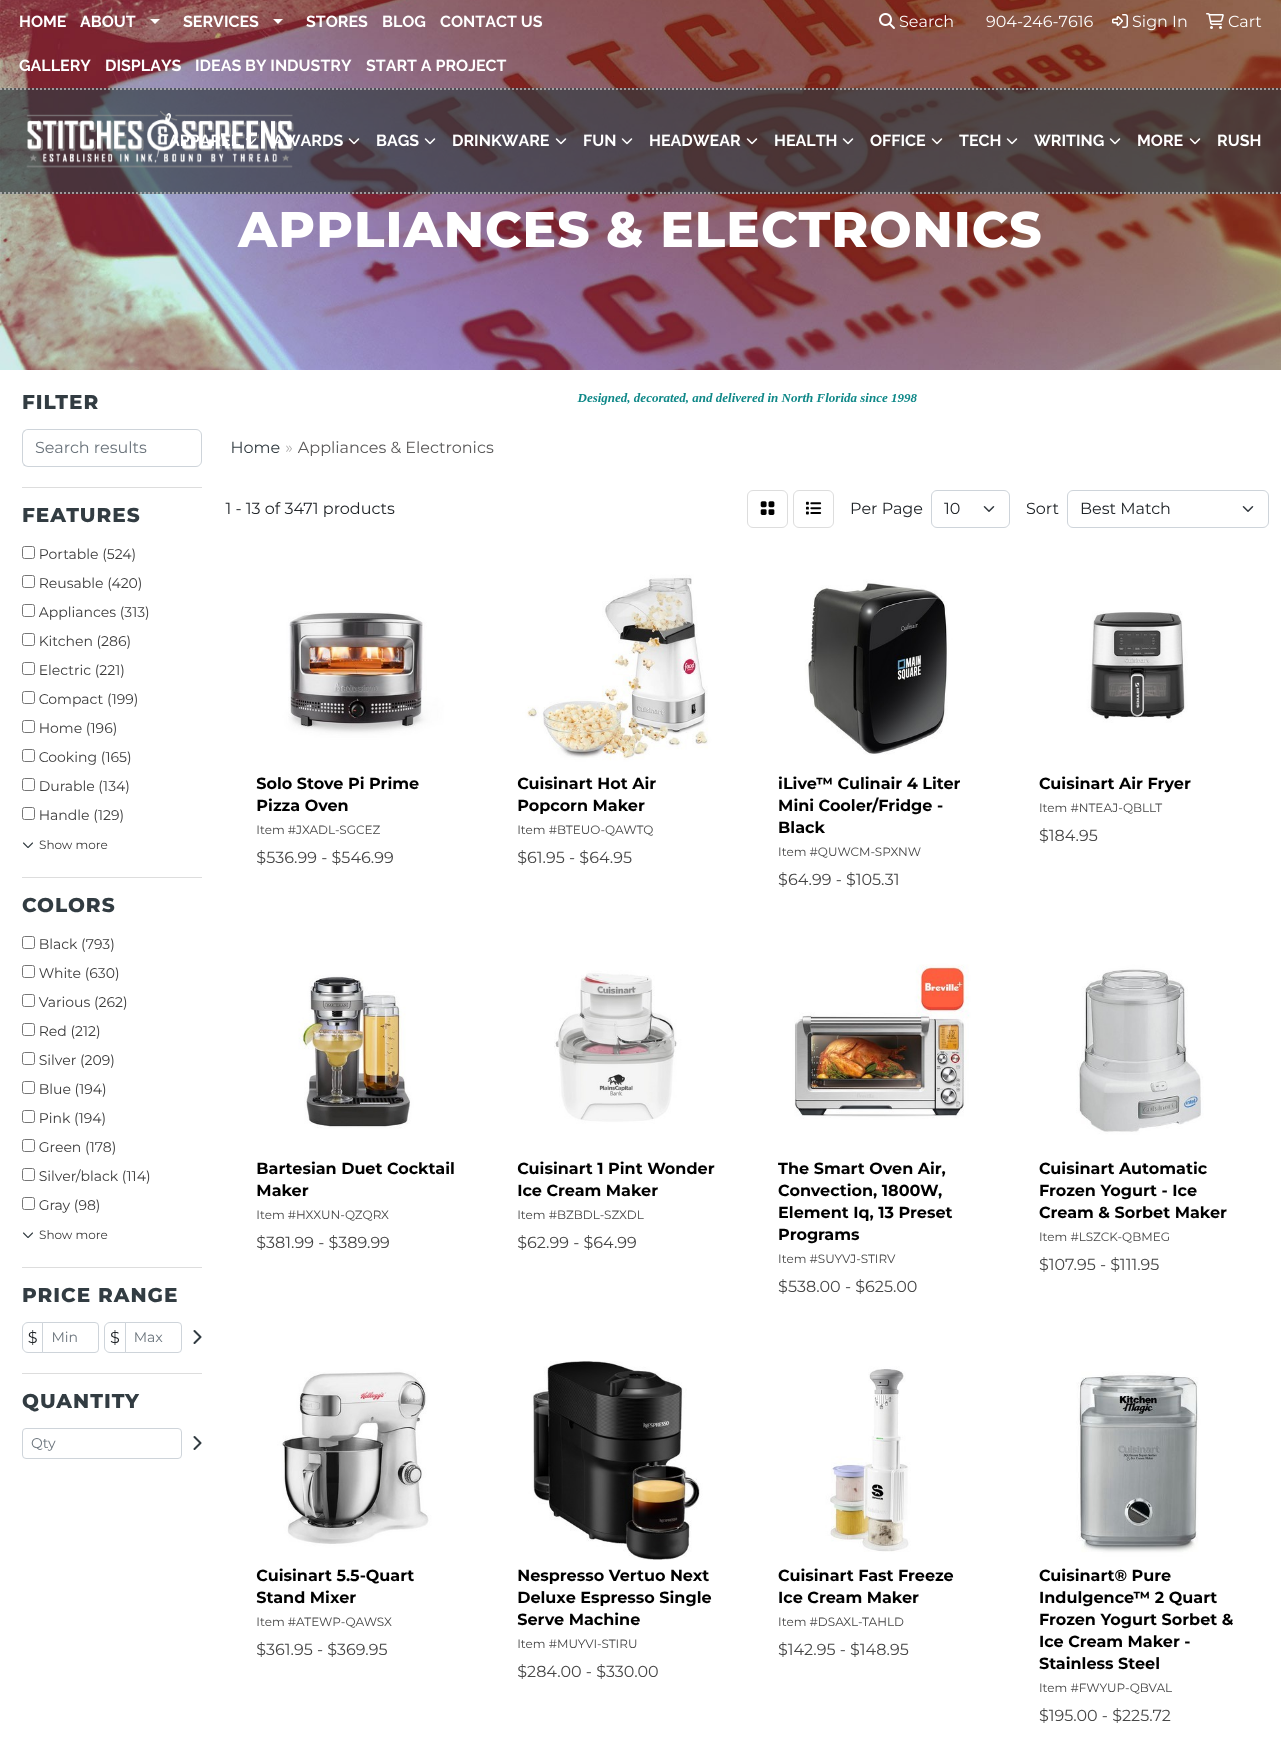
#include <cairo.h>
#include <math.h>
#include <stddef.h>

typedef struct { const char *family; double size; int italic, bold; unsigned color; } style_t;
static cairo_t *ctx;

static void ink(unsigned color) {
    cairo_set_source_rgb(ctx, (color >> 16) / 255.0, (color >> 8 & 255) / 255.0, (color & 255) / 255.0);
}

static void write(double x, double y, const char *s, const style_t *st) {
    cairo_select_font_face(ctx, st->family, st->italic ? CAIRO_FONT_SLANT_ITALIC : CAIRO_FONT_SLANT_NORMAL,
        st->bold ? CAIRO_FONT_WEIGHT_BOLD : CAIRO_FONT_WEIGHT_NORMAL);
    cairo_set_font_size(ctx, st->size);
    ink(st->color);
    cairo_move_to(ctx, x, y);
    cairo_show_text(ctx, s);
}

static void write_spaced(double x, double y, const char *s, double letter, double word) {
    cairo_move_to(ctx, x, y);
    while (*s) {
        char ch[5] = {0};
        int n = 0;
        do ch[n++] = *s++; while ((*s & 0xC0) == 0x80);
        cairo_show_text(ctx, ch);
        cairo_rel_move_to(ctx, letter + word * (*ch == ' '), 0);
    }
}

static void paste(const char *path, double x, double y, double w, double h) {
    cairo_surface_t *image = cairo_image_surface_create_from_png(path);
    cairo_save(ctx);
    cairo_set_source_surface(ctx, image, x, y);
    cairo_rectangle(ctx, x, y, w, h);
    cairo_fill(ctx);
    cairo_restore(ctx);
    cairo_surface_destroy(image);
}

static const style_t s1 = {"Raleway", 16, 0, 1, 0xffffff};
static const style_t s2 = {"Montserrat", 16, 0, 0, 0xffffff};

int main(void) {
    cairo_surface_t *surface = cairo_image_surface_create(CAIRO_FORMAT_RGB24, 1281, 1756);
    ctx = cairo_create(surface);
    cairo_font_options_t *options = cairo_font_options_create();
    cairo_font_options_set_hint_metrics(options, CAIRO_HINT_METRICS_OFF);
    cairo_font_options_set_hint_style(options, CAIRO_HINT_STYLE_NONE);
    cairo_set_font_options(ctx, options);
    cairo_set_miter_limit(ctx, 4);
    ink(0xffffff);
    cairo_paint(ctx);
    paste("pic16.png", 0, 0, 1281, 370);
    write(19, 27, "HOME", &s1);
    write(80, 27, "ABOUT", &s1);
    cairo_new_path(ctx);
    cairo_move_to(ctx, 150, 19);
    cairo_line_to(ctx, 160, 19);
    cairo_line_to(ctx, 155, 24);
    cairo_close_path(ctx);
    cairo_fill(ctx);
    write(183, 27, "SERVICES", &s1);
    cairo_new_path(ctx);
    cairo_move_to(ctx, 273, 19);
    cairo_line_to(ctx, 283, 19);
    cairo_line_to(ctx, 278, 24);
    cairo_close_path(ctx);
    cairo_fill(ctx);
    write(306, 27, "STORES", &s1);
    write(382, 27, "BLOG", &s1);
    write(440, 27, "CONTACT US", &s1);
    write(19, 71, "GALLERY", &s1);
    write(105, 71, "DISPLAYS", &s1);
    write(195, 71, "IDEAS BY INDUSTRY", &s1);
    write(366, 71, "START A PROJECT", &s1);
    paste("pic1.png", 879, 13, 16, 16);
    write(899, 27, "Search", &s2);
    write(986, 27, "904-246-7616", &s2);
    paste("pic2.png", 1112, 14, 16, 14);
    write(1132, 27, "Sign In", &s2);
    paste("pic3.png", 1206, 13, 18, 16);
    write(1228, 27, "Cart", &s2);
    cairo_set_source_rgba(ctx, 0.196, 0.235, 0.259, 0.67);
    cairo_rectangle(ctx, 0, 88, 1281, 106);
    cairo_fill(ctx);
    cairo_new_path(ctx);
    cairo_move_to(ctx, 0, 89);
    cairo_line_to(ctx, 1281, 89);
    cairo_set_source_rgba(ctx, 0.8, 0.8, 0.8, 0.67);
    cairo_set_dash(ctx, (double[]){2, 2}, 2, 0);
    cairo_stroke(ctx);
    cairo_new_path(ctx);
    cairo_move_to(ctx, 0, 193);
    cairo_line_to(ctx, 1281, 193);
    cairo_stroke(ctx);
    paste("pic4.png", 26, 110, 268, 58);
    write(169, 146, "APPAREL", &s1);
    paste("pic5.png", 245, 138, 12, 7);
    write(273, 146, "AWARDS", &s1);
    paste("pic6.png", 348, 138, 12, 7);
    write(376, 146, "BAGS", &s1);
    paste("pic7.png", 424, 138, 12, 7);
    write(452, 146, "DRINKWARE", &s1);
    paste("pic8.png", 555, 138, 12, 7);
    write(583, 146, "FUN", &s1);
    paste("pic9.png", 621, 138, 12, 7);
    write(649, 146, "HEADWEAR", &s1);
    paste("pic10.png", 746, 138, 12, 7);
    write(774, 146, "HEALTH", &s1);
    paste("pic11.png", 842, 138, 12, 7);
    write(870, 146, "OFFICE", &s1);
    paste("pic12.png", 931, 138, 12, 7);
    write(959, 146, "TECH", &s1);
    paste("pic13.png", 1006, 138, 12, 7);
    write(1034, 146, "WRITING", &s1);
    paste("pic14.png", 1109, 138, 12, 7);
    write(1137, 146, "MORE", &s1);
    paste("pic15.png", 1189, 138, 12, 7);
    write(1217, 146, "RUSH", &s1);
    cairo_select_font_face(ctx, "Montserrat ExtraBold", CAIRO_FONT_SLANT_NORMAL, CAIRO_FONT_WEIGHT_NORMAL);
    cairo_set_font_size(ctx, 50);
    write_spaced(238, 247, "APPLIANCES & ELECTRONICS", 1, 0);
    paste("pic17.png", 22, 393, 1247, 1330);
    cairo_surface_write_to_png(surface, "screenshot.png");
    cairo_font_options_destroy(options);
    cairo_destroy(ctx);
    cairo_surface_destroy(surface);
    return 0;
}
